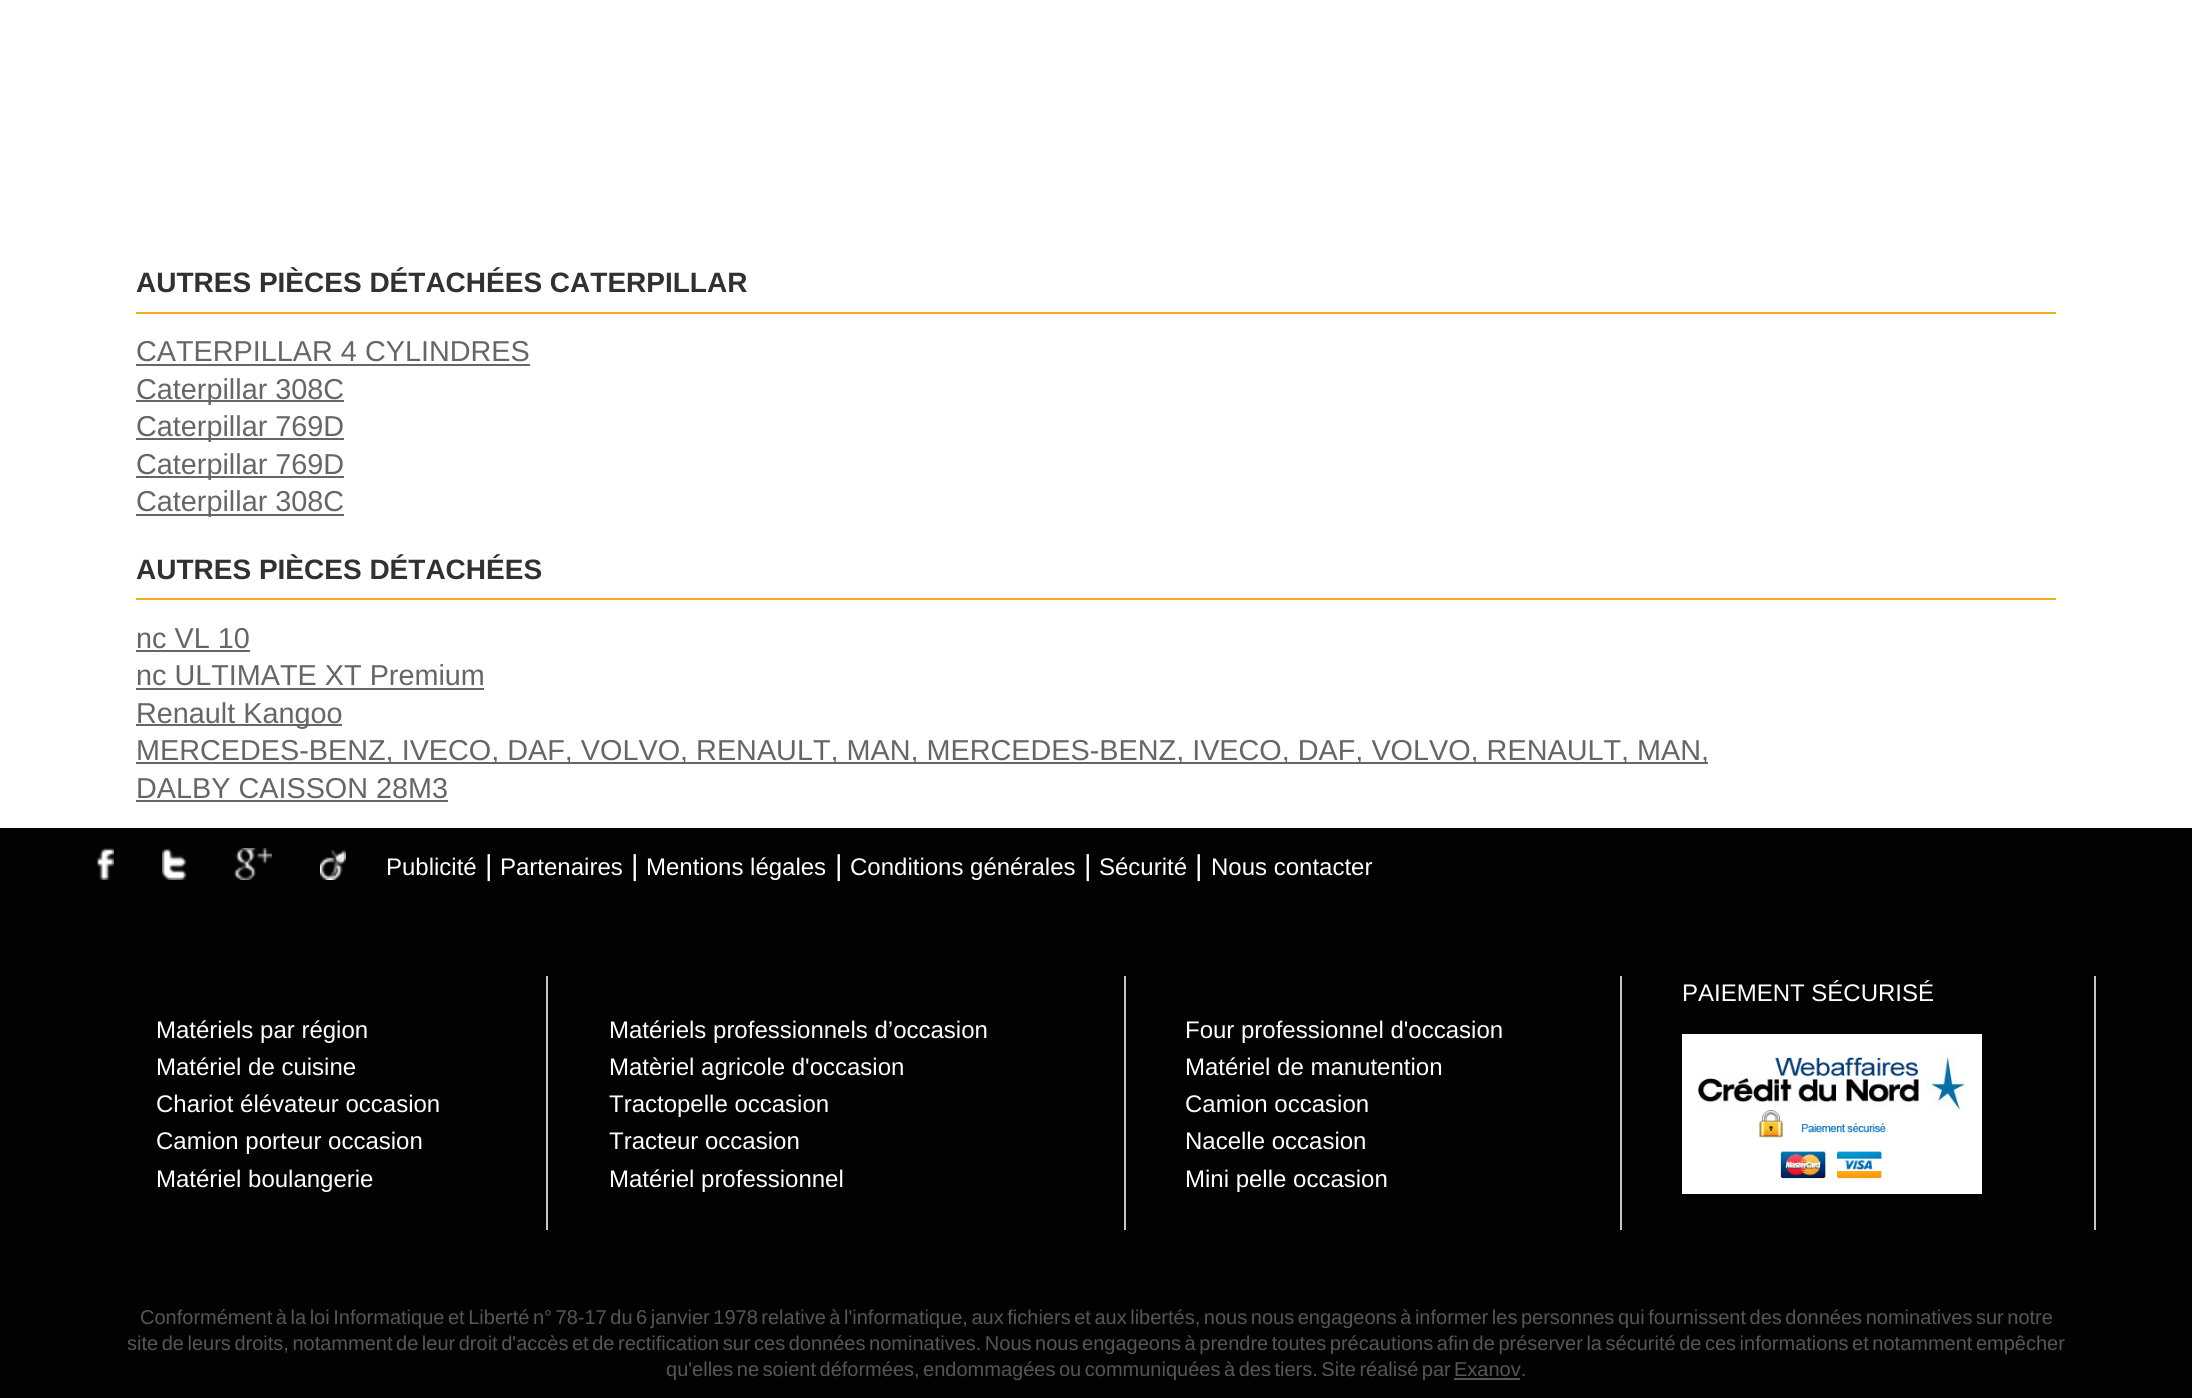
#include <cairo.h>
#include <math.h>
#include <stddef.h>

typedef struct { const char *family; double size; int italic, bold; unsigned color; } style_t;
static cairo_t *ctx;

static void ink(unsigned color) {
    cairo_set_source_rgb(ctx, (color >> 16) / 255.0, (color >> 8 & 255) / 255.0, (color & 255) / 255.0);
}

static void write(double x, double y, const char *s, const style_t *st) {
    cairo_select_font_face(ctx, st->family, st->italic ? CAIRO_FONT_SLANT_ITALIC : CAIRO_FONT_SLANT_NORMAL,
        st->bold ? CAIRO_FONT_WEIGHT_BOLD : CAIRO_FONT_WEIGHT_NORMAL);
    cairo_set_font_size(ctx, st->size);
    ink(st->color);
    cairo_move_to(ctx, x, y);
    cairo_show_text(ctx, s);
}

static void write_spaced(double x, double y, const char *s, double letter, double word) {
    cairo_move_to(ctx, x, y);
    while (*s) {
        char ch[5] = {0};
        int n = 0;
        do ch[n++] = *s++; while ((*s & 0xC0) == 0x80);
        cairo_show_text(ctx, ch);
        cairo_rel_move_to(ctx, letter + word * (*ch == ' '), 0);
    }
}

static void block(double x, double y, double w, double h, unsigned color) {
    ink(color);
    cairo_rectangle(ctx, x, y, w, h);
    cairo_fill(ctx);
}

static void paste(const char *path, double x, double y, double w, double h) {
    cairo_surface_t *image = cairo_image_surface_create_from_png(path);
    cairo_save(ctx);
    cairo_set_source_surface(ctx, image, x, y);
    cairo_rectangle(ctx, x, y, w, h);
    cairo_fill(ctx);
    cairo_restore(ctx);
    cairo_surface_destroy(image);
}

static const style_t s1 = {"Liberation Sans", 28, 0, 1, 0x313131};
static const style_t s2 = {"Liberation Sans", 28.8, 0, 0, 0x666666};
static const style_t s3 = {"Liberation Sans", 24, 0, 0, 0xffffff};
static const style_t s4 = {"Liberation Sans", 28.8, 0, 0, 0xffffff};
static const style_t s5 = {"Liberation Sans", 20, 0, 0, 0x565656};

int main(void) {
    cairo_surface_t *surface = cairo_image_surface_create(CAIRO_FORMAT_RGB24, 2192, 1398);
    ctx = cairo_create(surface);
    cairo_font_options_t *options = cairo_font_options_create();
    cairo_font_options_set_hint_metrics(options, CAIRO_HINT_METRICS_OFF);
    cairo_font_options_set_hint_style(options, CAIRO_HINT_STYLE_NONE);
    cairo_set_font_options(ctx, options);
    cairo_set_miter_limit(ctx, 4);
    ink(0xffffff);
    cairo_paint(ctx);
    block(136, 312, 1920, 2, 0xf8ab1c);
    write(136, 292, "AUTRES PIÈCES DÉTACHÉES CATERPILLAR", &s1);
    write(136, 361, "CATERPILLAR 4 CYLINDRES", &s2);
    block(136, 364, 394, 2, 0x666666);
    block(136, 400, 208, 2, 0x666666);
    write(136, 399, "Caterpillar 308C", &s2);
    block(136, 438, 208, 2, 0x666666);
    write(136, 436, "Caterpillar 769D", &s2);
    block(136, 476, 208, 2, 0x666666);
    write(136, 474, "Caterpillar 769D", &s2);
    block(136, 514, 208, 2, 0x666666);
    write(136, 511, "Caterpillar 308C", &s2);
    block(136, 598, 1920, 2, 0xf8ab1c);
    write(136, 579, "AUTRES PIÈCES DÉTACHÉES", &s1);
    write(136, 648, "nc VL 10", &s2);
    block(136, 650, 114, 2, 0x666666);
    write(136, 685, "nc ULTIMATE XT Premium", &s2);
    block(136, 688, 348, 2, 0x666666);
    block(136, 724, 206, 2, 0x666666);
    write(136, 723, "Renault Kangoo", &s2);
    block(136, 762, 1572, 2, 0x666666);
    write(136, 760, "MERCEDES-BENZ, IVECO, DAF, VOLVO, RENAULT, MAN, MERCEDES-BENZ, IVECO, DAF, VOLVO, RENAULT, MAN,", &s2);
    write(136, 798, "DALBY CAISSON 28M3", &s2);
    block(136, 800, 312, 2, 0x666666);
    block(0, 828, 2192, 570, 0x030202);
    paste("pic1.png", 96, 848, 18, 32);
    paste("pic2.png", 162, 848, 24, 32);
    paste("pic3.png", 234, 848, 38, 32);
    paste("pic4.png", 320, 850, 26, 30);
    write(386, 875, "Publicité", &s3);
    write(485, 875, "|", &s4);
    write(500, 875, "Partenaires", &s3);
    write(631, 875, "|", &s4);
    write(646, 875, "Mentions légales", &s3);
    write(835, 875, "|", &s4);
    write(850, 875, "Conditions générales", &s3);
    write(1084, 875, "|", &s4);
    write(1099, 875, "Sécurité", &s3);
    write(1195, 875, "|", &s4);
    write(1211, 875, "Nous contacter", &s3);
    block(2094, 976, 2, 254, 0xc5c5c5);
    write(1682, 1001, "PAIEMENT SÉCURISÉ", &s3);
    paste("pic5.png", 1682, 1034, 300, 160);
    block(546, 976, 2, 254, 0xc5c5c5);
    write(156, 1038, "Matériels par région", &s3);
    write(156, 1075, "Matériel de cuisine", &s3);
    write(156, 1112, "Chariot élévateur occasion", &s3);
    write(156, 1149, "Camion porteur occasion", &s3);
    write(156, 1187, "Matériel boulangerie", &s3);
    block(1124, 976, 2, 254, 0xc5c5c5);
    write(609, 1038, "Matériels professionnels d’occasion", &s3);
    write(609, 1075, "Matèriel agricole d'occasion", &s3);
    write(609, 1112, "Tractopelle occasion", &s3);
    write(609, 1149, "Tracteur occasion", &s3);
    write(609, 1187, "Matériel professionnel", &s3);
    block(1620, 976, 2, 254, 0xc5c5c5);
    write(1185, 1038, "Four professionnel d'occasion", &s3);
    write(1185, 1075, "Matériel de manutention", &s3);
    write(1185, 1112, "Camion occasion", &s3);
    write(1185, 1149, "Nacelle occasion", &s3);
    write(1185, 1187, "Mini pelle occasion", &s3);
    cairo_set_font_size(ctx, 20);
    ink(0x565656);
    write_spaced(140, 1324, "Conformément à la loi Informatique et Liberté n° 78-17 du 6 janvier 1978 relative à l'informatique, aux fichiers et aux libertés, nous nous engageons à informer les personnes qui fournissent des données nominatives sur notre", 0, -2);
    write_spaced(127, 1350, "site de leurs droits, notamment de leur droit d'accès et de rectification sur ces données nominatives. Nous nous engageons à prendre toutes précautions afin de préserver la sécurité de ces informations et notamment empêcher", 0, -2);
    write_spaced(666, 1376, "qu'elles ne soient déformées, endommagées ou communiquées à des tiers. Site réalisé par", 0, -2);
    write(1454, 1376, "Exanov.", &s5);
    block(1454, 1378, 66, 2, 0x565656);
    cairo_surface_write_to_png(surface, "screenshot.png");
    cairo_font_options_destroy(options);
    cairo_destroy(ctx);
    cairo_surface_destroy(surface);
    return 0;
}
